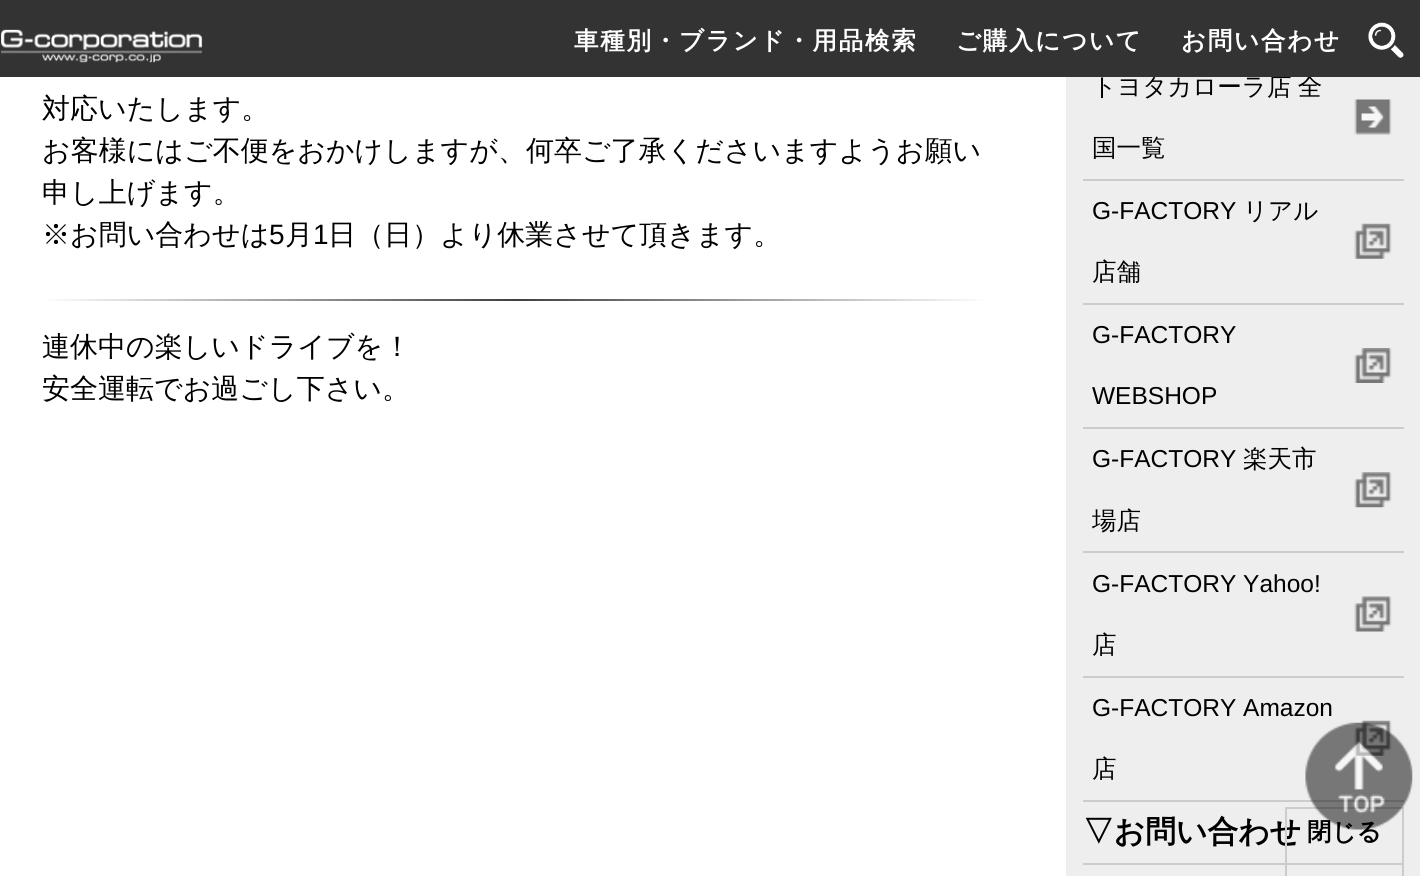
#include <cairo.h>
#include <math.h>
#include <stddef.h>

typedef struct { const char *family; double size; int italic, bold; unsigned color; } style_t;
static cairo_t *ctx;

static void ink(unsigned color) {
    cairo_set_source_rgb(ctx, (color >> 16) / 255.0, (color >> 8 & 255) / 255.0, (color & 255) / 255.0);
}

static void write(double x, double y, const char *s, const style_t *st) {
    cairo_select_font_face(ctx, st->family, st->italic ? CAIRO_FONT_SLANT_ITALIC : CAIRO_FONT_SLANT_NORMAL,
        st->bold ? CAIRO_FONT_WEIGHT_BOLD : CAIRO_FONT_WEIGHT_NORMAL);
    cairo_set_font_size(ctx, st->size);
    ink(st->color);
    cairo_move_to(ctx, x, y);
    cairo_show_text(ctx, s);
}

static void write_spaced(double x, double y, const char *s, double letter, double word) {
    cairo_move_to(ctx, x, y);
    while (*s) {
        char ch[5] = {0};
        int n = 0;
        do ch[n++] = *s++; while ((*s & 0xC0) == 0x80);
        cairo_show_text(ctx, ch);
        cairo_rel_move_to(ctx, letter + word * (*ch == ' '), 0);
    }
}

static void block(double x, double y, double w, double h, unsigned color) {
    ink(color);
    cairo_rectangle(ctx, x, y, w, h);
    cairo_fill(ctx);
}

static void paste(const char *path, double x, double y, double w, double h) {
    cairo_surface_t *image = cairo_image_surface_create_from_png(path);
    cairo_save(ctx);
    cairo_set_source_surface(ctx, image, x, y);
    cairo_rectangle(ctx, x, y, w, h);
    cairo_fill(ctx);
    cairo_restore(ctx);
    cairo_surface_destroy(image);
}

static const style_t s1 = {"WenQuanYi Zen Hei Medium", 28, 0, 0, 0x000000};
static const style_t s2 = {"Liberation Sans", 28, 0, 0, 0x000000};
static const style_t s3 = {"WenQuanYi Zen Hei Medium", 24.5, 0, 0, 0x000000};
static const style_t s4 = {"Liberation Sans", 24.5, 0, 0, 0x000000};
static const style_t s5 = {"WenQuanYi Zen Hei", 30.75, 0, 1, 0x000000};
static const style_t s6 = {"WenQuanYi Zen Hei", 24.5, 0, 1, 0x000000};

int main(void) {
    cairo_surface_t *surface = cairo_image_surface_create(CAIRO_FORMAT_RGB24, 1420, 876);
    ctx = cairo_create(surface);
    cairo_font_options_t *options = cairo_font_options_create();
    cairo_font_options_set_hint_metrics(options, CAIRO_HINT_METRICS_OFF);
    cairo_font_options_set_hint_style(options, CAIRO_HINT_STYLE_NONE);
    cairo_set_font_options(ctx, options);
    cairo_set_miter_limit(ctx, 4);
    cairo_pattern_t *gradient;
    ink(0xffffff);
    cairo_paint(ctx);
    block(1066, 77, 354, 799, 0xeeeeee);
    cairo_select_font_face(ctx, "WenQuanYi Zen Hei Medium", CAIRO_FONT_SLANT_NORMAL, CAIRO_FONT_WEIGHT_NORMAL);
    cairo_set_font_size(ctx, 24.5);
    ink(0x000000);
    write_spaced(1092, 95, "トヨタカローラ店 全", 0, -1);
    block(0, 0, 1420, 77, 0x333333);
    paste("pic1.png", 1, 29, 202, 34);
    cairo_select_font_face(ctx, "WenQuanYi Zen Hei", CAIRO_FONT_SLANT_NORMAL, CAIRO_FONT_WEIGHT_BOLD);
    ink(0xffffff);
    write_spaced(574, 49, "車種別・ブランド・用品検索", 1.75, 0);
    write_spaced(956, 49, "ご購入について", 1.75, 0);
    write_spaced(1181, 49, "お問い合わせ", 1.75, 0);
    paste("pic2.png", 1368, 22, 36, 36);
    write(42, 118, "対応いたします。", &s1);
    write(42, 160, "お客様にはご不便をおかけしますが、何卒ご了承くださいますようお願い", &s1);
    write(42, 202, "申し上げます。", &s1);
    write(42, 244, "※お問い合わせは", &s1);
    write(269, 244, "5", &s2);
    write(285, 244, "月", &s1);
    write(313, 244, "1", &s2);
    write(328, 244, "日（日）より休業させて頂きます。", &s1);
    gradient = cairo_pattern_create_linear(42, 300, 989, 300);
    cairo_pattern_add_color_stop_rgba(gradient, 0, 1, 1, 1, 1);
    cairo_pattern_add_color_stop_rgba(gradient, 0.5, 0.251, 0.251, 0.251, 1);
    cairo_pattern_add_color_stop_rgba(gradient, 1, 1, 1, 1, 1);
    cairo_set_source(ctx, gradient);
    cairo_pattern_destroy(gradient);
    cairo_rectangle(ctx, 42, 299, 947, 2);
    cairo_fill(ctx);
    write(42, 356, "連休中の楽しいドライブを！", &s1);
    write(42, 398, "安全運転でお過ごし下さい。", &s1);
    block(1083, 179, 321, 2, 0xcccccc);
    paste("pic3.png", 1354, 99, 38, 36);
    write(1092, 156, "国一覧", &s3);
    block(1083, 303, 321, 2, 0xcccccc);
    write(1092, 219, "G-FACTORY", &s4);
    write(1243, 219, "リアル", &s3);
    paste("pic4.png", 1354, 223, 38, 36);
    write(1092, 280, "店舗", &s3);
    block(1083, 427, 321, 2, 0xcccccc);
    write(1092, 343, "G-FACTORY", &s4);
    paste("pic5.png", 1354, 348, 38, 35);
    write(1092, 404, "WEBSHOP", &s4);
    block(1083, 551, 321, 2, 0xcccccc);
    write(1092, 467, "G-FACTORY", &s4);
    write(1243, 467, "楽天市", &s3);
    paste("pic6.png", 1354, 472, 38, 36);
    write(1092, 529, "場店", &s3);
    block(1083, 676, 321, 2, 0xcccccc);
    write(1092, 592, "G-FACTORY Yahoo!", &s4);
    paste("pic7.png", 1354, 596, 38, 36);
    write(1092, 653, "店", &s3);
    block(1083, 800, 321, 2, 0xcccccc);
    write(1092, 716, "G-FACTORY Amazon", &s4);
    paste("pic4.png", 1354, 720, 38, 36);
    write(1092, 777, "店", &s3);
    block(1083, 863, 321, 2, 0xcccccc);
    write(1083, 842, "▽お問い合わせ", &s5);
    cairo_rectangle(ctx, 1286, 808, 117, 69);
    ink(0xcccccc);
    cairo_stroke(ctx);
    write(1307, 840, "閉じる", &s6);
    paste("pic8.png", 1305, 722, 108, 108);
    cairo_surface_write_to_png(surface, "screenshot.png");
    cairo_font_options_destroy(options);
    cairo_destroy(ctx);
    cairo_surface_destroy(surface);
    return 0;
}
